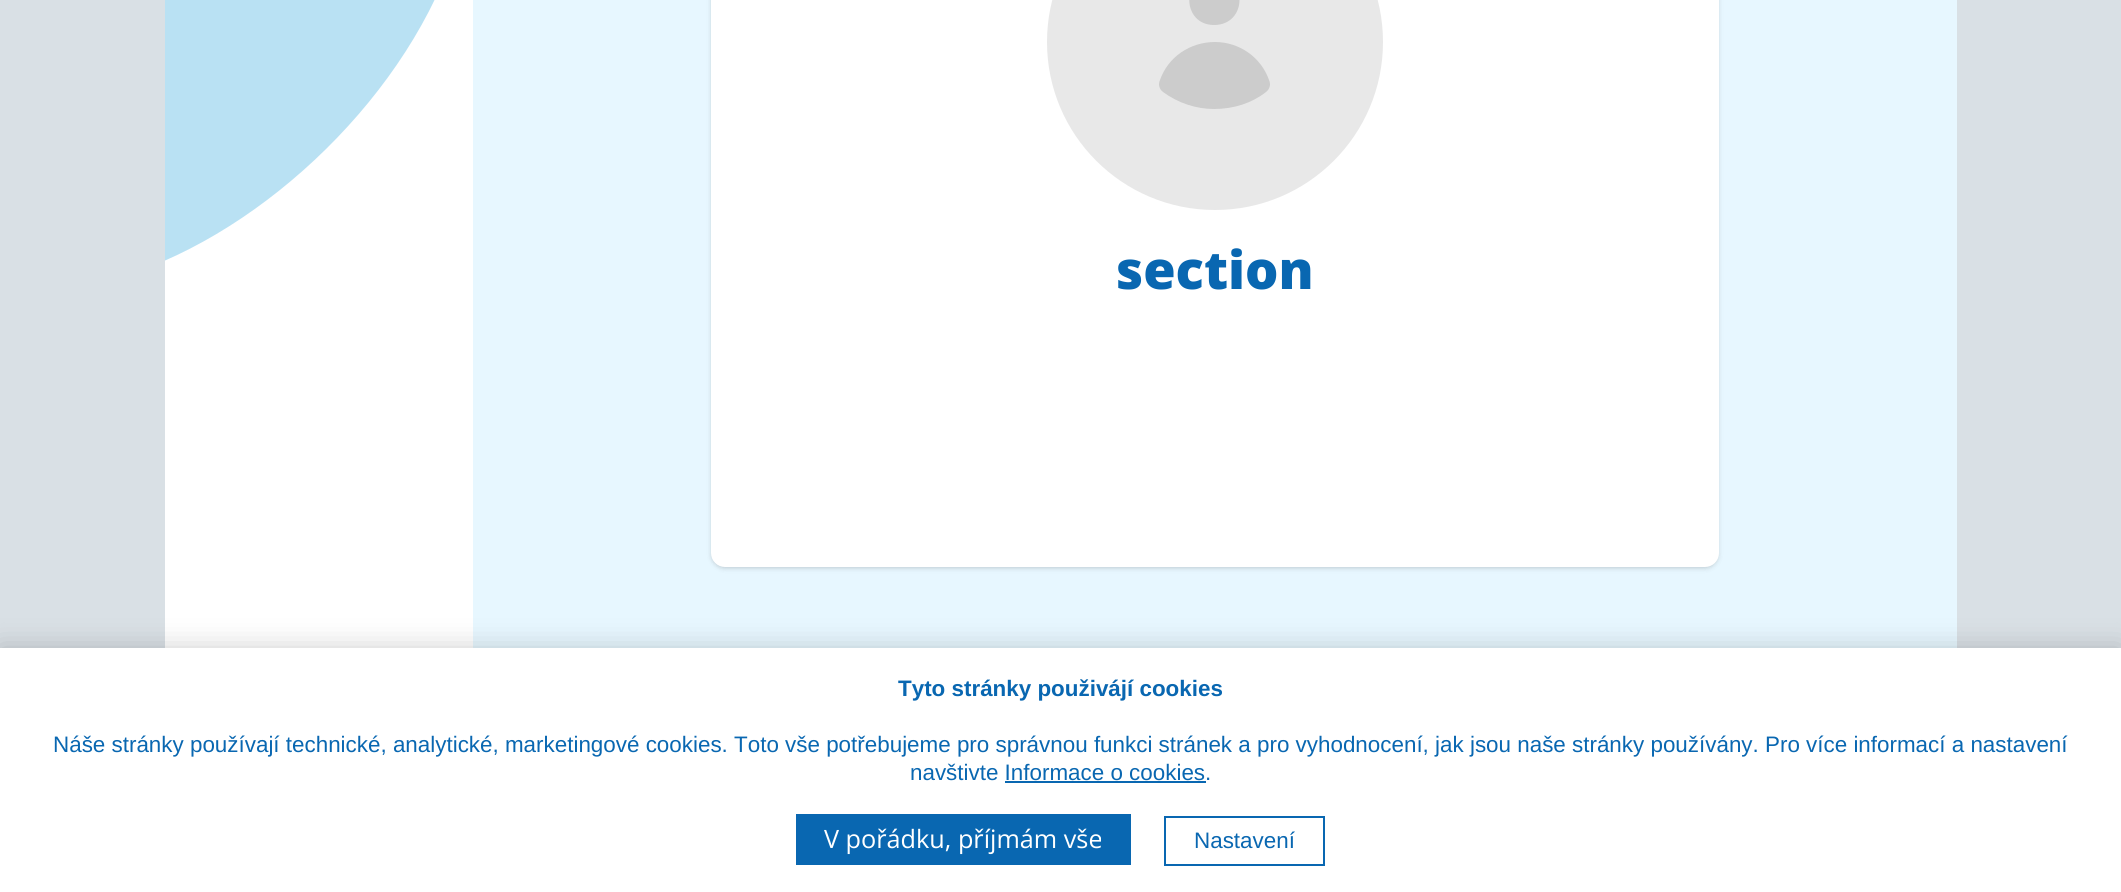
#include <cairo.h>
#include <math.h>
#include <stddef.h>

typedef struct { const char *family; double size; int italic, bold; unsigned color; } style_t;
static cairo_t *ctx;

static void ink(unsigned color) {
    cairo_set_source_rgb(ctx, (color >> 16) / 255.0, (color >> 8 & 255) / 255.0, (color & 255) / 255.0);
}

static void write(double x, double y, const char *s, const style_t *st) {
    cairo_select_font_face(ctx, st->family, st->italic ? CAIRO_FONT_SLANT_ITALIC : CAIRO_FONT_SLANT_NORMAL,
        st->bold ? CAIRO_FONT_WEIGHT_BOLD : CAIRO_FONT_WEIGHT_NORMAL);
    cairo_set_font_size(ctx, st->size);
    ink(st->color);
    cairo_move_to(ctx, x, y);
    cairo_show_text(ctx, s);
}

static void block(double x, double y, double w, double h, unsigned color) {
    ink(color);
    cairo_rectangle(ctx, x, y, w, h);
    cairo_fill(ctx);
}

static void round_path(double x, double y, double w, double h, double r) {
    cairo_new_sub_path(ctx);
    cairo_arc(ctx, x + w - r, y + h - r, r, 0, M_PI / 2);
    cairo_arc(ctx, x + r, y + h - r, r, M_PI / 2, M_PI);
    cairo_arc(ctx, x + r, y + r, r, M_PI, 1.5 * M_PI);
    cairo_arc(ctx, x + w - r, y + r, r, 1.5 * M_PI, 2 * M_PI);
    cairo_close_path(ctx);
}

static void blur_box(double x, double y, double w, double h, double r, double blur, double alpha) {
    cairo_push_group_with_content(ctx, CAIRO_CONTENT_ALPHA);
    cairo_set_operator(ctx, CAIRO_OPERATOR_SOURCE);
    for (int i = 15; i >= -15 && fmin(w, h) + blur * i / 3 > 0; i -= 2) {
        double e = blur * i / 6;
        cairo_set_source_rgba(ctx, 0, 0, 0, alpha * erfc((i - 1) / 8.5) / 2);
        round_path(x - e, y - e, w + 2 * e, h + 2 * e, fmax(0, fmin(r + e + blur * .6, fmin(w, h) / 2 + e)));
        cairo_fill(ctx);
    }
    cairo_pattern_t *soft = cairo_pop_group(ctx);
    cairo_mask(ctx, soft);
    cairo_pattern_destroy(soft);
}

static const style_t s1 = {"Open Sans ExtraBold", 52.5, 0, 0, 0x0967b1};
static const style_t s2 = {"Liberation Sans", 22.4, 0, 1, 0x0967b1};
static const style_t s3 = {"Liberation Sans", 22.4, 0, 0, 0x0967b1};
static const style_t s4 = {"Open Sans", 25.25, 0, 0, 0xffffff};

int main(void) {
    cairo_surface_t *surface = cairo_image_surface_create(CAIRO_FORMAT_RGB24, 2121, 892);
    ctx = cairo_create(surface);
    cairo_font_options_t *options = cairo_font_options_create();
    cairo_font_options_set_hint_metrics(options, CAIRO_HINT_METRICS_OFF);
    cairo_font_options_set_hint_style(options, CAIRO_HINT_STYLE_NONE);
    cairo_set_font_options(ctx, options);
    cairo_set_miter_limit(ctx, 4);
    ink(0xd9e0e5);
    cairo_paint(ctx);
    block(165, 0, 308, 648, 0xffffff);
    cairo_save(ctx);
    cairo_rectangle(ctx, 165, 0, 308, 263);
    cairo_clip(ctx);
    ink(0xb9e1f3);
    cairo_new_path(ctx);
    cairo_move_to(ctx, 164, 261);
    cairo_line_to(ctx, 164, -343);
    cairo_line_to(ctx, 472, -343);
    cairo_line_to(ctx, 472, -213);
    cairo_curve_to(ctx, 472, -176, 474, -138, 468, -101);
    cairo_curve_to(ctx, 441, 52, 304, 200, 164, 261);
    cairo_close_path(ctx);
    cairo_fill(ctx);
    cairo_restore(ctx);
    block(473, 0, 1484, 648, 0xe7f7ff);
    ink(0x000000);
    blur_box(712, -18, 1005, 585, 12, 2, 0.1);
    blur_box(711, -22, 1008, 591, 14, 2.5, 0.1);
    ink(0xffffff);
    round_path(711, -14, 1008, 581, 14);
    cairo_fill(ctx);
    ink(0xe8e8e8);
    cairo_arc(ctx, 1215, 42, 168, 0, 2 * M_PI);
    cairo_fill(ctx);
    ink(0xcccccc);
    cairo_new_path(ctx);
    cairo_move_to(ctx, 1214, 25);
    cairo_curve_to(ctx, 1248, 25, 1248, -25, 1214, -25);
    cairo_curve_to(ctx, 1181, -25, 1181, 25, 1214, 25);
    cairo_close_path(ctx);
    cairo_move_to(ctx, 1160, 80);
    cairo_curve_to(ctx, 1158, 84, 1159, 89, 1163, 92);
    cairo_curve_to(ctx, 1178, 103, 1196, 109, 1214, 109);
    cairo_curve_to(ctx, 1234, 109, 1252, 103, 1266, 92);
    cairo_curve_to(ctx, 1270, 89, 1271, 84, 1269, 80);
    cairo_curve_to(ctx, 1261, 57, 1239, 42, 1215, 42);
    cairo_curve_to(ctx, 1190, 42, 1168, 57, 1160, 80);
    cairo_close_path(ctx);
    cairo_fill(ctx);
    write(1116, 289, "section", &s1);
    ink(0x000000);
    blur_box(0, 648, 2121, 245, 0, 14, 0.2);
    block(0, 648, 2121, 244, 0xffffff);
    write(898, 696, "Tyto stránky použivájí cookies", &s2);
    write(53, 752, "Náše stránky používají technické, analytické, marketingové cookies. Toto vše potřebujeme pro správnou funkci stránek a pro vyhodnocení, jak jsou naše stránky používány. Pro více informací a nastavení", &s3);
    write(910, 780, "navštivte Informace o cookies.", &s3);
    block(1005, 781, 201, 2, 0x0967b1);
    block(796, 814, 335, 51, 0x0967b1);
    write(824, 848, "V pořádku, příjmám vše", &s4);
    cairo_rectangle(ctx, 1165, 817, 159, 48);
    ink(0x0967b1);
    cairo_stroke(ctx);
    write(1194, 848, "Nastavení", &s3);
    cairo_surface_write_to_png(surface, "screenshot.png");
    cairo_font_options_destroy(options);
    cairo_destroy(ctx);
    cairo_surface_destroy(surface);
    return 0;
}
